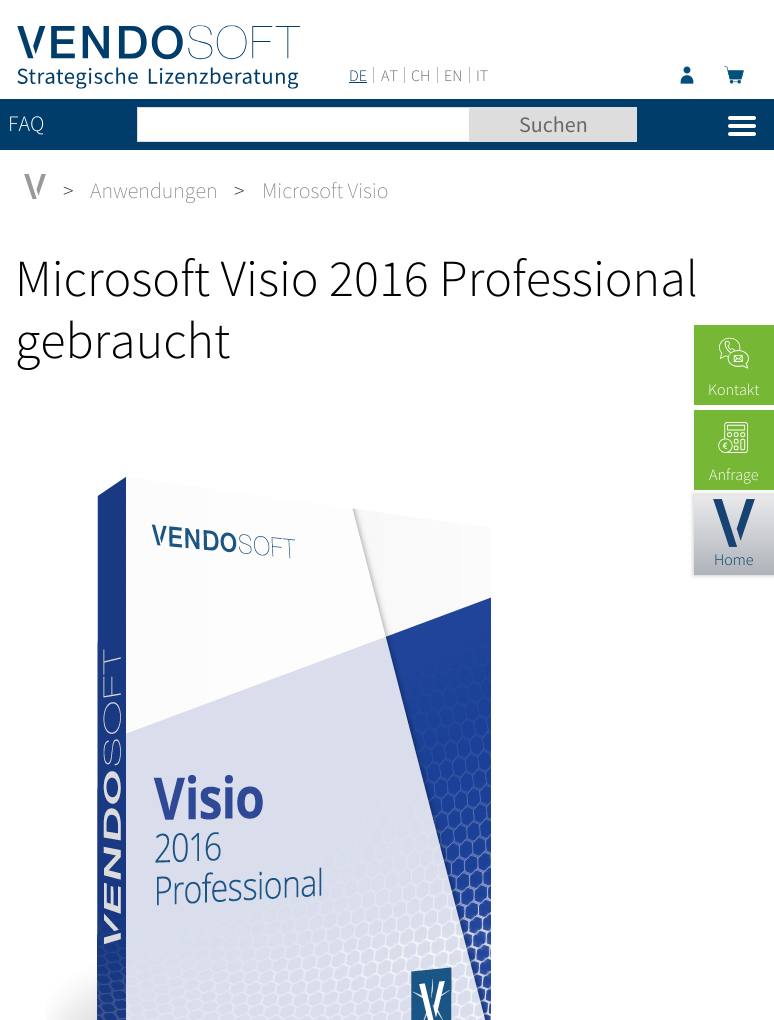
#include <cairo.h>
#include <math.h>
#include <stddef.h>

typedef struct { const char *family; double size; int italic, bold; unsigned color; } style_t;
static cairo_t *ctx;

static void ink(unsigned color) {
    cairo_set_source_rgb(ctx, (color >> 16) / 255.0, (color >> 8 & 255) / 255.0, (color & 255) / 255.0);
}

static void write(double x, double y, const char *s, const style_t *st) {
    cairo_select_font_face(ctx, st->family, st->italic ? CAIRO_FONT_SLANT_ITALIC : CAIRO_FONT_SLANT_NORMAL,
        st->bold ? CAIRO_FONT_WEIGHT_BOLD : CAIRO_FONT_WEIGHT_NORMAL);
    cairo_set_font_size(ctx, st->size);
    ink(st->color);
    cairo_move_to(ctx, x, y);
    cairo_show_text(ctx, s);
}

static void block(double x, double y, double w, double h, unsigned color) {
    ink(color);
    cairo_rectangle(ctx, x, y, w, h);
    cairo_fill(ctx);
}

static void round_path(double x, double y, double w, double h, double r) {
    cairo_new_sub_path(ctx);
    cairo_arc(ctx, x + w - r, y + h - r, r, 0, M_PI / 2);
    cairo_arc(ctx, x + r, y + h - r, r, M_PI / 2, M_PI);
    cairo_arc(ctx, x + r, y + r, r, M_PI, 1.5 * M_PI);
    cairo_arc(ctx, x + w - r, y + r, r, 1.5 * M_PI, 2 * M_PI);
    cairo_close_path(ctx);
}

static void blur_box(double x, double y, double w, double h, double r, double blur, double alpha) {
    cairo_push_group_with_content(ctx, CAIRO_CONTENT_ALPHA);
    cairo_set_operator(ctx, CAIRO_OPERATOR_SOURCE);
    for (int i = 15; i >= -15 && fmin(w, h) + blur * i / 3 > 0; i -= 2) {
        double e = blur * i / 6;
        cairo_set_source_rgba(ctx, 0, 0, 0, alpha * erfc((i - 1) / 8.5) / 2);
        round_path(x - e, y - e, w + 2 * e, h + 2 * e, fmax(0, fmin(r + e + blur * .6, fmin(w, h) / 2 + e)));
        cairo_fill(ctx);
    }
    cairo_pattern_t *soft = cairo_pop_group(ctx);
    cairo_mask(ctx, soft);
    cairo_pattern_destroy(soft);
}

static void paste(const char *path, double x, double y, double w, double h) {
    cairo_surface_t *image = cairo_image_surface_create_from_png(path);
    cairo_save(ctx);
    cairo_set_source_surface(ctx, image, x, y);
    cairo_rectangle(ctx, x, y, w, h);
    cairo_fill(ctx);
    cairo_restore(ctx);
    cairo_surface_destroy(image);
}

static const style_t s1 = {"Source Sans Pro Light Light", 16, 0, 0, 0x003d6a};
static const style_t s2 = {"Source Sans Pro Light Light", 16, 0, 0, 0x686868};
static const style_t s3 = {"Source Sans Pro Light Light", 22, 0, 0, 0xffffff};
static const style_t s4 = {"Source Sans Pro", 22, 0, 0, 0x686868};
static const style_t s5 = {"Source Sans Pro Light Light", 16, 0, 0, 0xffffff};
static const style_t s6 = {"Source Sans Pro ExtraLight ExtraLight", 22, 0, 0, 0x000000};
static const style_t s7 = {"Source Sans Pro ExtraLight ExtraLight", 22, 0, 0, 0x777777};
static const style_t s8 = {"Source Sans Pro Light Light", 52, 0, 0, 0x000000};

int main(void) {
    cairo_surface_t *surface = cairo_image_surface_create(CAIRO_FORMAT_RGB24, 774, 1020);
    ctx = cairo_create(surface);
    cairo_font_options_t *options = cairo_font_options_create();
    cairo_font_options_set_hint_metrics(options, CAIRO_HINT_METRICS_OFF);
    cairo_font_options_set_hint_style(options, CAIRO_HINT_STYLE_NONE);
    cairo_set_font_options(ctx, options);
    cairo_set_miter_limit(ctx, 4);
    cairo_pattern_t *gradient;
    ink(0xffffff);
    cairo_paint(ctx);
    paste("pic1.png", 17, 25, 283, 64);
    block(373, 67, 1, 16, 0xbbbbbb);
    write(349, 81, "DE", &s1);
    block(349, 82, 18, 1, 0x003d6a);
    block(404, 67, 1, 16, 0xbbbbbb);
    write(381, 81, "AT", &s2);
    block(437, 67, 1, 16, 0xbbbbbb);
    write(411, 81, "CH", &s2);
    block(469, 67, 1, 16, 0xbbbbbb);
    write(444, 81, "EN", &s2);
    write(476, 81, "IT", &s2);
    paste("pic2.png", 680, 66, 14, 18);
    paste("pic3.png", 724, 66, 20, 18);
    block(0, 99, 774, 51, 0x003d6a);
    write(8, 131, "FAQ", &s3);
    cairo_rectangle(ctx, 137.5, 107.5, 332, 34);
    cairo_fill_preserve(ctx);
    ink(0xdddddd);
    cairo_set_line_width(ctx, 1);
    cairo_stroke(ctx);
    block(470, 107, 167, 35, 0xdddddd);
    write(519, 132, "Suchen", &s4);
    paste("pic4.png", 728, 116, 28, 20);
    block(694, 325, 80, 80, 0x76b835);
    paste("pic5.png", 719, 337, 30, 32);
    write(708, 395, "Kontakt", &s5);
    block(694, 410, 80, 80, 0x76b835);
    paste("pic6.png", 718, 422, 31, 31);
    write(709, 480, "Anfrage", &s5);
    ink(0xbbbbbb);
    blur_box(694, 495, 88, 80, 0, 2.5, 1);
    gradient = cairo_pattern_create_linear(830, 575, 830, 495);
    cairo_pattern_add_color_stop_rgba(gradient, 0, 0.682, 0.702, 0.725, 1);
    cairo_pattern_add_color_stop_rgba(gradient, 1, 0.918, 0.918, 0.925, 1);
    cairo_set_source(ctx, gradient);
    cairo_pattern_destroy(gradient);
    cairo_rectangle(ctx, 694, 495, 80, 80);
    cairo_fill(ctx);
    paste("pic7.png", 713, 499, 42, 48);
    write(714, 565, "Home", &s1);
    paste("pic8.png", 24, 174, 22, 25);
    write(63, 198, ">", &s6);
    write(90, 198, "Anwendungen", &s7);
    write(234, 198, ">", &s6);
    write(262, 198, "Microsoft Visio", &s7);
    write(15, 296, "Microsoft Visio 2016 Professional", &s8);
    write(15, 358, "gebraucht", &s8);
    paste("pic9.png", 46, 477, 445, 543);
    cairo_surface_write_to_png(surface, "screenshot.png");
    cairo_font_options_destroy(options);
    cairo_destroy(ctx);
    cairo_surface_destroy(surface);
    return 0;
}
